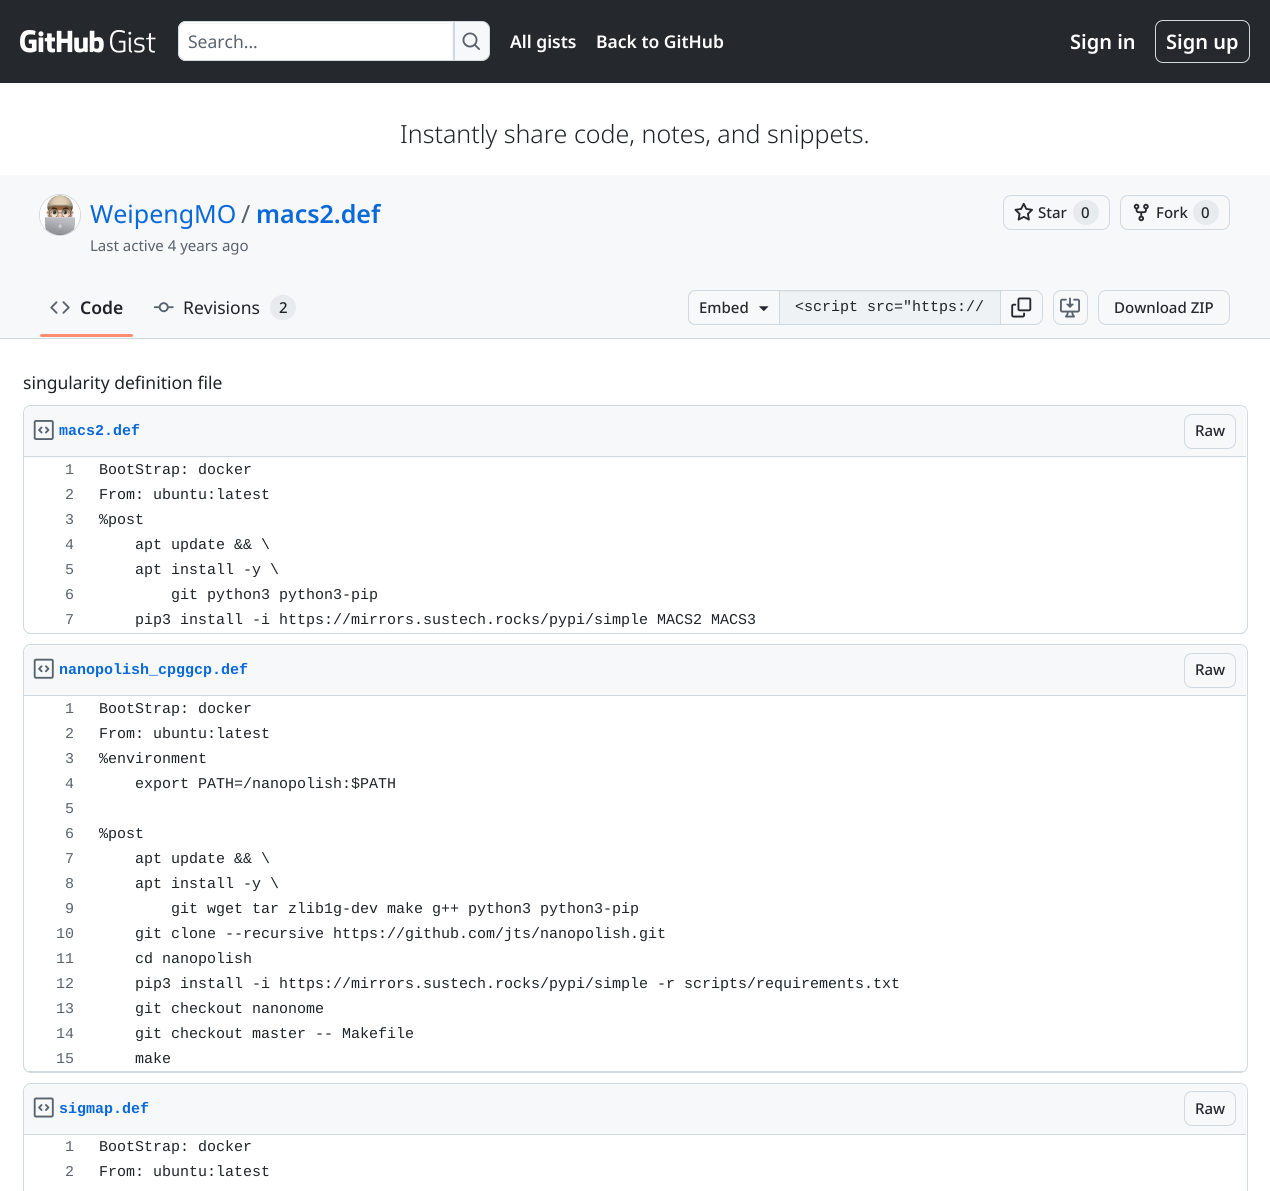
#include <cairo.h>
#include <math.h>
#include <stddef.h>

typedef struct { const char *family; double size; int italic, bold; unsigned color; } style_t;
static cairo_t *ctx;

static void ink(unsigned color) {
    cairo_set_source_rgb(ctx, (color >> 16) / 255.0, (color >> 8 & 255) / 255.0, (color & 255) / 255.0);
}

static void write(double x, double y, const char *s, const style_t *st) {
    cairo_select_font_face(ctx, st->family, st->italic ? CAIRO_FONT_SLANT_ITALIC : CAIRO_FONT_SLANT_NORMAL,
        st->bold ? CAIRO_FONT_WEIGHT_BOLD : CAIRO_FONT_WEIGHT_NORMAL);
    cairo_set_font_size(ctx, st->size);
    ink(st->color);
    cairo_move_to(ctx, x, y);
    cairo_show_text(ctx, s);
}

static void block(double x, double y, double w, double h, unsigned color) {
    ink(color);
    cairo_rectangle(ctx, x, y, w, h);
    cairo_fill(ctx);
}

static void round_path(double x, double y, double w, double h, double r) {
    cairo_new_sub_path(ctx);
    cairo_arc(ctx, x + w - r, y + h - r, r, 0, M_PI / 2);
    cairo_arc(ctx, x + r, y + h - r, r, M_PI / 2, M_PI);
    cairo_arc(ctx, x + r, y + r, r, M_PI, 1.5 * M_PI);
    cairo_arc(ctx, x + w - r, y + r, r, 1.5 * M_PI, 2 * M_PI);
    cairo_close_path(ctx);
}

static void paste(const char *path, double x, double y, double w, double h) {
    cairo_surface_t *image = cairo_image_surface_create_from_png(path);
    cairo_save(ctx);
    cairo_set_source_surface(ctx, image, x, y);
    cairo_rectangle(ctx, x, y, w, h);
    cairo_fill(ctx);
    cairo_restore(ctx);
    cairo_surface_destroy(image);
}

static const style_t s1 = {"Noto Sans", 17.5, 0, 0, 0x59636e};
static const style_t s2 = {"Noto Sans SemiBold", 17.5, 0, 0, 0xffffff};
static const style_t s3 = {"Noto Sans SemiBold", 20, 0, 0, 0xffffff};
static const style_t s4 = {"Noto Sans Light", 25, 0, 0, 0x1f2328};
static const style_t s5 = {"Noto Sans", 25, 0, 0, 0x0969da};
static const style_t s6 = {"Noto Sans", 25, 0, 0, 0x59636e};
static const style_t s7 = {"Noto Sans SemiBold", 25, 0, 0, 0x0969da};
static const style_t s8 = {"Noto Sans", 15, 0, 0, 0x59636e};
static const style_t s9 = {"Noto Sans Medium", 15, 0, 0, 0x25292e};
static const style_t s10 = {"Noto Sans SemiBold", 17.5, 0, 0, 0x1f2328};
static const style_t s11 = {"Noto Sans", 17.5, 0, 0, 0x1f2328};
static const style_t s12 = {"Noto Sans Medium", 15, 0, 0, 0x1f2328};
static const style_t s13 = {"Liberation Mono", 15, 0, 0, 0x1f2328};
static const style_t s14 = {"Liberation Mono", 15, 0, 1, 0x0969da};
static const style_t s15 = {"Liberation Mono", 15, 0, 0, 0x59636e};

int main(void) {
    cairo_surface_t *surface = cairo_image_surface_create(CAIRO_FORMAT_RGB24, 1270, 1191);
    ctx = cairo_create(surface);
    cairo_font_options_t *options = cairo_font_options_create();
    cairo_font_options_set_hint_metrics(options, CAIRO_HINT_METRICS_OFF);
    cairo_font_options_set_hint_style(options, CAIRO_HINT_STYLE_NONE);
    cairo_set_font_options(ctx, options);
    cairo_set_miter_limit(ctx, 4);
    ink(0xffffff);
    cairo_paint(ctx);
    block(0, 0, 1270, 83, 0x25292e);
    paste("pic1.png", 20, 30, 84, 23);
    paste("pic2.png", 110, 30, 46, 23);
    ink(0xffffff);
    cairo_new_path(ctx);
    cairo_move_to(ctx, 186, 21);
    cairo_line_to(ctx, 454, 21);
    cairo_line_to(ctx, 454, 61);
    cairo_line_to(ctx, 186, 61);
    cairo_curve_to(ctx, 181.5, 61, 178, 57.5, 178, 53);
    cairo_line_to(ctx, 178, 29);
    cairo_curve_to(ctx, 178, 24.5, 181.5, 21, 186, 21);
    cairo_close_path(ctx);
    cairo_fill(ctx);
    ink(0xf6f6f6);
    cairo_new_path(ctx);
    cairo_move_to(ctx, 185, 24);
    cairo_line_to(ctx, 452, 24);
    cairo_line_to(ctx, 452, 60);
    cairo_line_to(ctx, 453, 60);
    cairo_line_to(ctx, 453, 23);
    cairo_line_to(ctx, 185, 23);
    cairo_curve_to(ctx, 182, 23, 179, 26, 179, 29);
    cairo_line_to(ctx, 179, 30);
    cairo_curve_to(ctx, 179, 27, 182, 24, 185, 24);
    cairo_close_path(ctx);
    cairo_fill(ctx);
    cairo_new_path(ctx);
    cairo_move_to(ctx, 186, 21.5);
    cairo_line_to(ctx, 453.5, 21.5);
    cairo_line_to(ctx, 453.5, 60.5);
    cairo_line_to(ctx, 186, 60.5);
    cairo_curve_to(ctx, 182, 60.5, 178.5, 57, 178.5, 53);
    cairo_line_to(ctx, 178.5, 29);
    cairo_curve_to(ctx, 178.5, 25, 182, 21.5, 186, 21.5);
    cairo_close_path(ctx);
    ink(0xd1d9e0);
    cairo_set_line_width(ctx, 1);
    cairo_stroke(ctx);
    write(188, 48, "Search...", &s1);
    ink(0xf6f8fa);
    cairo_new_path(ctx);
    cairo_move_to(ctx, 454.5, 21.5);
    cairo_line_to(ctx, 482, 21.5);
    cairo_curve_to(ctx, 486, 21.5, 489.5, 25, 489.5, 29);
    cairo_line_to(ctx, 489.5, 53);
    cairo_curve_to(ctx, 489.5, 57, 486, 60.5, 482, 60.5);
    cairo_line_to(ctx, 454.5, 60.5);
    cairo_close_path(ctx);
    cairo_fill_preserve(ctx);
    ink(0xd1d9e0);
    cairo_stroke(ctx);
    paste("pic3.png", 462, 32, 18, 18);
    write(510, 48, "All gists", &s2);
    write(596, 48, "Back to GitHub", &s2);
    write(1070, 49, "Sign in", &s3);
    round_path(1155.5, 20.5, 94, 42, 7.5);
    ink(0xd1d9e0);
    cairo_stroke(ctx);
    write(1166, 49, "Sign up", &s3);
    write(400, 143, "Instantly share code, notes, and snippets.", &s4);
    block(0, 175, 1270, 163, 0xf6f8fa);
    block(0, 338, 1270, 1, 0xd1d9e0);
    cairo_new_path(ctx);
    cairo_arc(ctx, 60, 215, 20.5, 0, 2 * M_PI);
    ink(0xd6d8db);
    cairo_stroke(ctx);
    ink(0xffffff);
    cairo_arc(ctx, 60, 215, 20, 0, 2 * M_PI);
    cairo_fill(ctx);
    paste("pic4.png", 45, 195, 30, 40);
    write(90, 223, "WeipengMO", &s5);
    write(241, 223, "/", &s6);
    write(256, 223, "macs2.def", &s7);
    write(90, 251, "Last active 4 years ago", &s8);
    round_path(1003.5, 195.5, 106, 34, 7.5);
    ink(0xd1d9e0);
    cairo_stroke(ctx);
    paste("pic5.png", 1014, 202, 19, 19);
    write(1038, 218, "Star", &s9);
    ink(0xe8ebee);
    round_path(1073, 200, 26, 25, 12.5);
    cairo_fill(ctx);
    write(1081, 218, "0", &s9);
    round_path(1120.5, 195.5, 109, 34, 7.5);
    ink(0xd1d9e0);
    cairo_stroke(ctx);
    paste("pic6.png", 1133, 203, 16, 19);
    write(1156, 218, "Fork", &s9);
    ink(0xe8ebee);
    round_path(1193, 200, 26, 25, 12.5);
    cairo_fill(ctx);
    write(1201, 218, "0", &s9);
    paste("pic7.png", 50, 301, 20, 13);
    write(80, 314, "Code", &s10);
    ink(0xfd8c73);
    round_path(40, 334, 93, 3, 1.5);
    cairo_fill(ctx);
    paste("pic8.png", 153, 302, 21, 11);
    write(183, 314, "Revisions", &s11);
    ink(0xe8ebee);
    round_path(270, 295, 26, 25, 12.5);
    cairo_fill(ctx);
    write(279, 313, "2", &s12);
    ink(0xd1d9e0);
    cairo_set_fill_rule(ctx, CAIRO_FILL_RULE_EVEN_ODD);
    cairo_new_path(ctx);
    cairo_move_to(ctx, 695, 290);
    cairo_line_to(ctx, 779, 290);
    cairo_line_to(ctx, 779, 325);
    cairo_line_to(ctx, 695, 325);
    cairo_curve_to(ctx, 691, 325, 688, 322, 688, 318);
    cairo_line_to(ctx, 688, 298);
    cairo_curve_to(ctx, 688, 293, 691, 290, 695, 290);
    cairo_close_path(ctx);
    cairo_move_to(ctx, 695, 291);
    cairo_line_to(ctx, 779, 291);
    cairo_line_to(ctx, 779, 324);
    cairo_line_to(ctx, 695, 324);
    cairo_curve_to(ctx, 692, 324, 689, 321, 689, 318);
    cairo_line_to(ctx, 689, 298);
    cairo_curve_to(ctx, 689, 294, 692, 291, 695, 291);
    cairo_close_path(ctx);
    cairo_fill(ctx);
    write(699, 313, "Embed", &s9);
    paste("pic9.png", 759, 306, 10, 6);
    block(780, 292, 220, 32, 0xeff2f5);
    block(780, 291, 220, 1, 0xe7eaed);
    block(779, 290, 221, 1, 0xd1d9e0);
    block(779, 324, 221, 1, 0xd1d9e0);
    block(779, 290, 1, 35, 0xd1d9e0);
    write(795, 311, "<script src=\"https://", &s13);
    cairo_new_path(ctx);
    cairo_move_to(ctx, 1000.5, 290.5);
    cairo_line_to(ctx, 1035, 290.5);
    cairo_curve_to(ctx, 1039, 290.5, 1042.5, 294, 1042.5, 298);
    cairo_line_to(ctx, 1042.5, 317);
    cairo_curve_to(ctx, 1042.5, 321, 1039, 324.5, 1035, 324.5);
    cairo_line_to(ctx, 1000.5, 324.5);
    cairo_close_path(ctx);
    ink(0xd1d9e0);
    cairo_stroke(ctx);
    paste("pic10.png", 1011, 297, 21, 21);
    round_path(1053.5, 290.5, 34, 34, 7.5);
    cairo_stroke(ctx);
    paste("pic11.png", 1060, 297, 20, 21);
    round_path(1098.5, 290.5, 131, 34, 7.5);
    cairo_stroke(ctx);
    write(1114, 313, "Download ZIP", &s9);
    write(23, 389, "singularity definition file", &s11);
    round_path(23.5, 405.5, 1224, 228, 7.5);
    ink(0xd1d9e0);
    cairo_stroke(ctx);
    ink(0xf6f8fa);
    cairo_new_path(ctx);
    cairo_move_to(ctx, 32, 406);
    cairo_line_to(ctx, 1238, 406);
    cairo_curve_to(ctx, 1242.5, 406, 1246, 409.5, 1246, 414);
    cairo_line_to(ctx, 1246, 458);
    cairo_line_to(ctx, 24, 458);
    cairo_line_to(ctx, 24, 414);
    cairo_curve_to(ctx, 24, 409.5, 27.5, 406, 32, 406);
    cairo_close_path(ctx);
    cairo_fill(ctx);
    block(24, 456, 1222, 1, 0xd1d9e0);
    paste("pic12.png", 33, 420, 21, 20);
    write(59, 435, "macs2.def", &s14);
    round_path(1184.5, 414.5, 51, 34, 7.5);
    ink(0xd1d9e0);
    cairo_stroke(ctx);
    write(1195, 436, "Raw", &s9);
    block(28, 633, 1215, 1, 0xd1d9e0);
    write(65, 474, "1", &s15);
    write(99, 474, "BootStrap: docker", &s13);
    write(65, 499, "2", &s15);
    write(99, 499, "From: ubuntu:latest", &s13);
    write(65, 524, "3", &s15);
    write(99, 524, "%post", &s13);
    write(65, 549, "4", &s15);
    write(135, 549, "apt update && \\", &s13);
    write(65, 574, "5", &s15);
    write(135, 574, "apt install -y \\", &s13);
    write(65, 599, "6", &s15);
    write(171, 599, "git python3 python3-pip", &s13);
    write(65, 624, "7", &s15);
    write(135, 624, "pip3 install -i https://mirrors.sustech.rocks/pypi/simple MACS2 MACS3", &s13);
    round_path(23.5, 644.5, 1224, 428, 7.5);
    ink(0xd1d9e0);
    cairo_stroke(ctx);
    ink(0xf6f8fa);
    cairo_new_path(ctx);
    cairo_move_to(ctx, 32, 645);
    cairo_line_to(ctx, 1238, 645);
    cairo_curve_to(ctx, 1242.5, 645, 1246, 648.5, 1246, 653);
    cairo_line_to(ctx, 1246, 696);
    cairo_line_to(ctx, 24, 696);
    cairo_line_to(ctx, 24, 653);
    cairo_curve_to(ctx, 24, 648.5, 27.5, 645, 32, 645);
    cairo_close_path(ctx);
    cairo_fill(ctx);
    block(24, 695, 1222, 1, 0xd1d9e0);
    paste("pic13.png", 33, 658, 21, 21);
    write(59, 674, "nanopolish_cpggcp.def", &s14);
    round_path(1184.5, 653.5, 51, 34, 7.5);
    ink(0xd1d9e0);
    cairo_stroke(ctx);
    write(1195, 675, "Raw", &s9);
    block(28, 1071, 1215, 1, 0xd1d9e0);
    write(65, 713, "1", &s15);
    write(99, 713, "BootStrap: docker", &s13);
    write(65, 738, "2", &s15);
    write(99, 738, "From: ubuntu:latest", &s13);
    write(65, 763, "3", &s15);
    write(99, 763, "%environment", &s13);
    write(65, 788, "4", &s15);
    write(135, 788, "export PATH=/nanopolish:$PATH", &s13);
    write(65, 813, "5", &s15);
    write(65, 838, "6", &s15);
    write(99, 838, "%post", &s13);
    write(65, 863, "7", &s15);
    write(135, 863, "apt update && \\", &s13);
    write(65, 888, "8", &s15);
    write(135, 888, "apt install -y \\", &s13);
    write(65, 913, "9", &s15);
    write(171, 913, "git wget tar zlib1g-dev make g++ python3 python3-pip", &s13);
    write(56, 938, "10", &s15);
    write(135, 938, "git clone --recursive https://github.com/jts/nanopolish.git", &s13);
    write(56, 963, "11", &s15);
    write(135, 963, "cd nanopolish", &s13);
    write(56, 988, "12", &s15);
    write(135, 988, "pip3 install -i https://mirrors.sustech.rocks/pypi/simple -r scripts/requirements.txt", &s13);
    write(56, 1013, "13", &s15);
    write(135, 1013, "git checkout nanonome", &s13);
    write(56, 1038, "14", &s15);
    write(135, 1038, "git checkout master -- Makefile", &s13);
    write(56, 1063, "15", &s15);
    write(135, 1063, "make", &s13);
    round_path(23.5, 1083.5, 1224, 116, 7.5);
    ink(0xd1d9e0);
    cairo_stroke(ctx);
    ink(0xf6f8fa);
    cairo_new_path(ctx);
    cairo_move_to(ctx, 32, 1084);
    cairo_line_to(ctx, 1238, 1084);
    cairo_curve_to(ctx, 1242.5, 1084, 1246, 1087.5, 1246, 1092);
    cairo_line_to(ctx, 1246, 1135);
    cairo_line_to(ctx, 24, 1135);
    cairo_line_to(ctx, 24, 1092);
    cairo_curve_to(ctx, 24, 1087.5, 27.5, 1084, 32, 1084);
    cairo_close_path(ctx);
    cairo_fill(ctx);
    block(24, 1134, 1222, 1, 0xd1d9e0);
    paste("pic14.png", 33, 1097, 21, 21);
    write(59, 1113, "sigmap.def", &s14);
    round_path(1184.5, 1091.5, 51, 34, 7.5);
    ink(0xd1d9e0);
    cairo_stroke(ctx);
    write(1195, 1114, "Raw", &s9);
    write(65, 1151, "1", &s15);
    write(99, 1151, "BootStrap: docker", &s13);
    write(65, 1176, "2", &s15);
    write(99, 1176, "From: ubuntu:latest", &s13);
    cairo_surface_write_to_png(surface, "screenshot.png");
    cairo_font_options_destroy(options);
    cairo_destroy(ctx);
    cairo_surface_destroy(surface);
    return 0;
}
